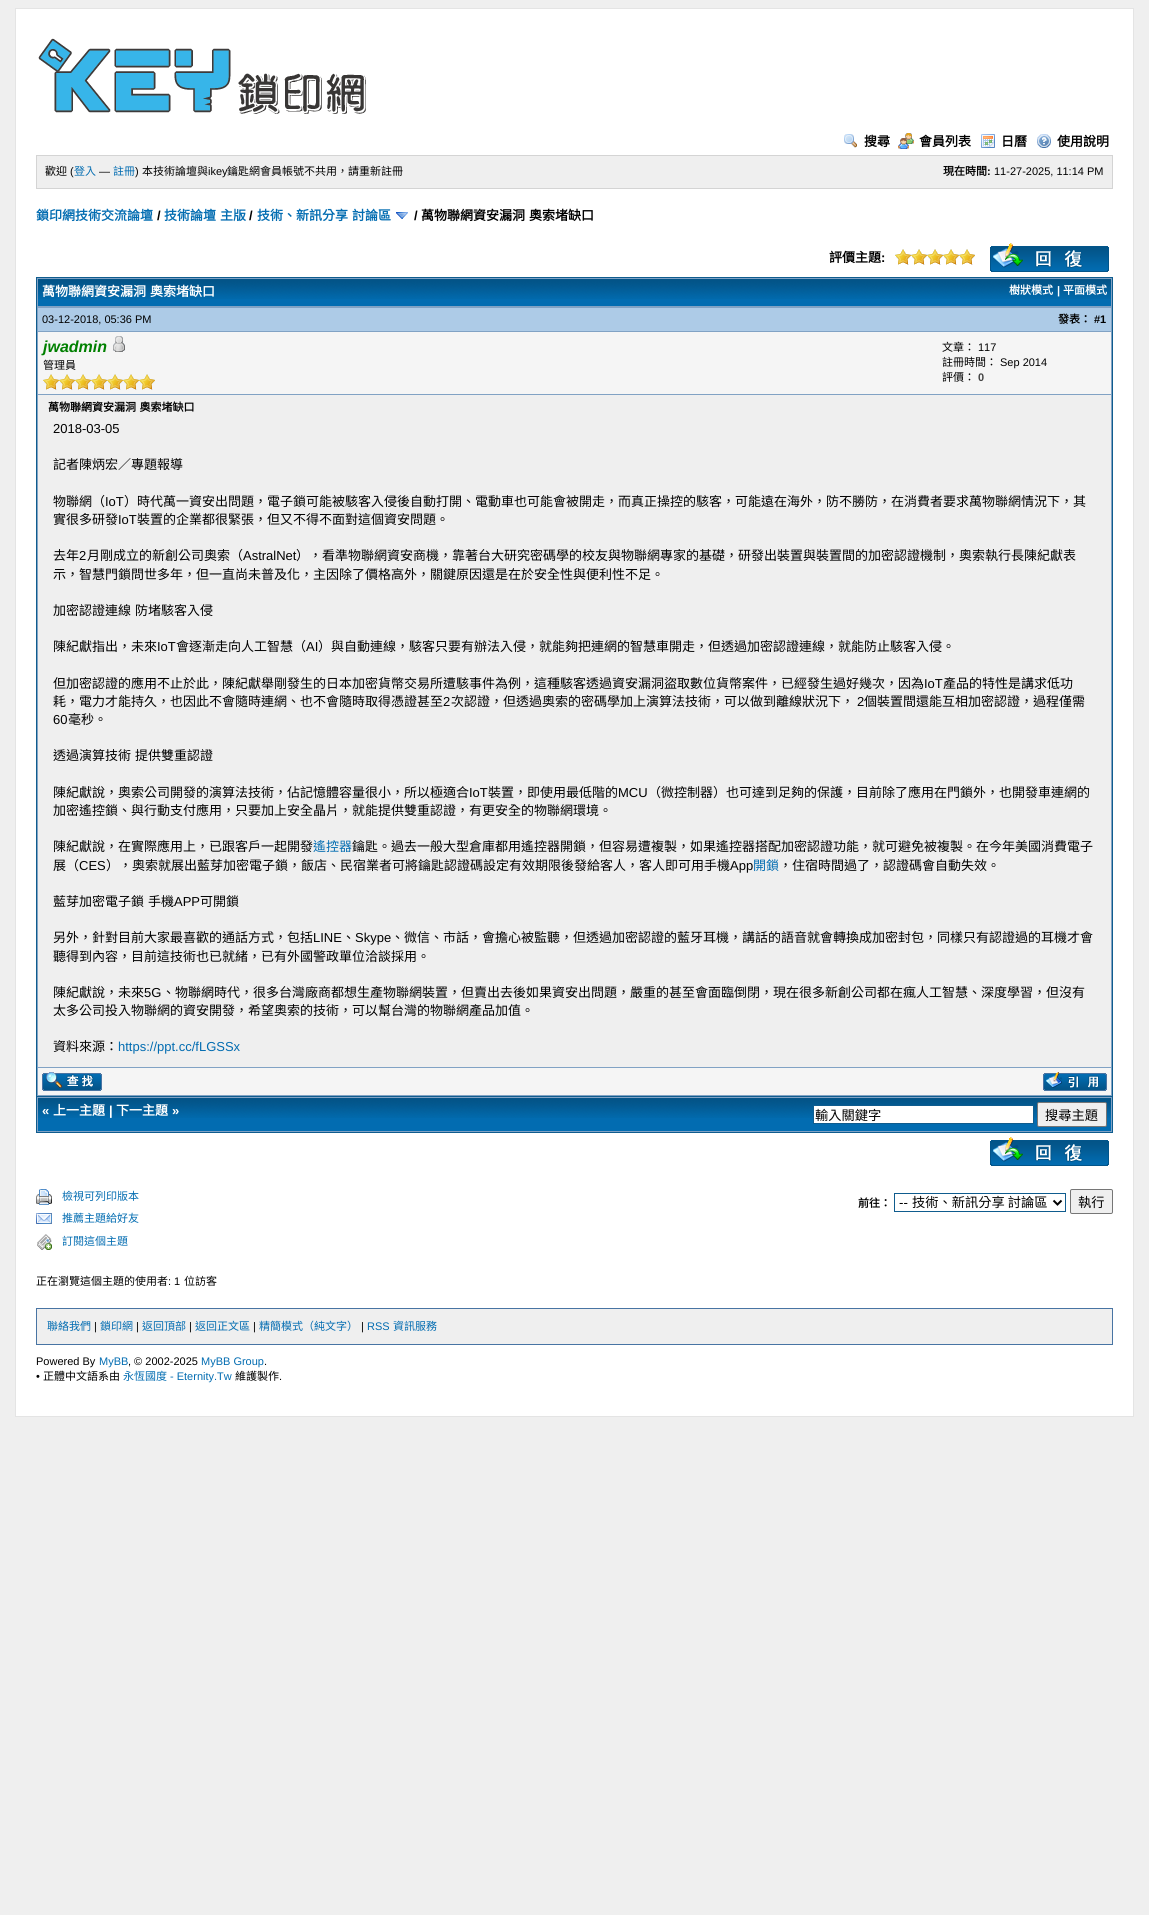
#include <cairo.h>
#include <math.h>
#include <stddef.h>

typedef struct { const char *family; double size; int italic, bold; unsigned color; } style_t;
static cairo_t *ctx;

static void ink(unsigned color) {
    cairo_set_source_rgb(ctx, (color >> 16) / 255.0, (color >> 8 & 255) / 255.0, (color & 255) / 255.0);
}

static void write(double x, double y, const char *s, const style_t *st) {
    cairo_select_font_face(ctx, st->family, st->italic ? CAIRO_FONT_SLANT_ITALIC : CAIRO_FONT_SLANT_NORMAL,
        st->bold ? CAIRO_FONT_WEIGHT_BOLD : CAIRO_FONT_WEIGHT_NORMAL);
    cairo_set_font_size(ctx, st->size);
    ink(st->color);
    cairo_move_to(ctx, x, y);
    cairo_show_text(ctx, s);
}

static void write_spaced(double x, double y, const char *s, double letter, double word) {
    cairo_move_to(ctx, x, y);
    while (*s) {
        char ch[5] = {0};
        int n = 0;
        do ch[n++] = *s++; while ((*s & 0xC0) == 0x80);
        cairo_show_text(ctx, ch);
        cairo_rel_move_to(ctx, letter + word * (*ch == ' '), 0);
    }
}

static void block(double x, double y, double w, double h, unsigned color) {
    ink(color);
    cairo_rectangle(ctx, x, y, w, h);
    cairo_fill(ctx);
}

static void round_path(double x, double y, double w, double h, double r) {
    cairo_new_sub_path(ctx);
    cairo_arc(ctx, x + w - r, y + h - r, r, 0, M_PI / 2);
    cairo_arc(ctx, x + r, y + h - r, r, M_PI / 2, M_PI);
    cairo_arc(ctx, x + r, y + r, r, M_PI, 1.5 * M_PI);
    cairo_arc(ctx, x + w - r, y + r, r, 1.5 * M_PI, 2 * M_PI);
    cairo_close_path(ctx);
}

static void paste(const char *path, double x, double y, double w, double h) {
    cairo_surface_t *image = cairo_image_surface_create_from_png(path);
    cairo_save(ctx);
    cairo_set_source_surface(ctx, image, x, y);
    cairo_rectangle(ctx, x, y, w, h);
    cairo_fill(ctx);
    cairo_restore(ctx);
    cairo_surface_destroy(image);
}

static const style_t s1 = {"Noto Sans CJK TC", 13, 0, 1, 0x000000};
static const style_t s2 = {"Noto Sans CJK TC", 11, 0, 0, 0x000000};
static const style_t s3 = {"Liberation Sans", 11, 0, 0, 0x000000};
static const style_t s4 = {"Noto Sans CJK TC", 11, 0, 0, 0x026cb1};
static const style_t s5 = {"Noto Sans CJK TC", 11, 0, 1, 0x000000};
static const style_t s6 = {"Liberation Sans", 11, 0, 1, 0x000000};
static const style_t s7 = {"Noto Sans CJK TC", 13, 0, 1, 0x026cb1};
static const style_t s8 = {"Liberation Sans", 13, 0, 1, 0x000000};
static const style_t s9 = {"Noto Sans CJK TC", 11, 0, 1, 0xffffff};
static const style_t s10 = {"Liberation Sans", 11, 0, 1, 0xffffff};
static const style_t s11 = {"Liberation Sans", 16, 1, 1, 0x008000};
static const style_t s12 = {"Liberation Sans", 11, 0, 1, 0x444444};
static const style_t s13 = {"Liberation Sans", 13, 0, 0, 0x000000};
static const style_t s14 = {"Noto Sans CJK TC", 13, 0, 0, 0x000000};
static const style_t s15 = {"Noto Sans CJK TC", 13, 0, 0, 0x026cb1};
static const style_t s16 = {"Liberation Sans", 13, 0, 0, 0x026cb1};
static const style_t s17 = {"Liberation Sans", 13, 0, 1, 0xffffff};
static const style_t s18 = {"Noto Sans CJK TC", 13, 0, 1, 0xffffff};
static const style_t s19 = {"Noto Sans CJK TC", 13.25, 0, 0, 0x000000};
static const style_t s20 = {"Liberation Sans", 13.25, 0, 0, 0x000000};
static const style_t s21 = {"Liberation Sans", 11, 0, 0, 0x026cb1};

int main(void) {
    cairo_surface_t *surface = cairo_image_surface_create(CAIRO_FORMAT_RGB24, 1149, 1915);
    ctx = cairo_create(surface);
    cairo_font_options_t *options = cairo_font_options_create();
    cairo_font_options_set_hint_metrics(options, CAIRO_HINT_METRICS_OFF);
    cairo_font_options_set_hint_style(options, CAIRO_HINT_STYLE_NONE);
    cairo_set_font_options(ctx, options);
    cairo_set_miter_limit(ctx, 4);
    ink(0xefefef);
    cairo_paint(ctx);
    ink(0xffffff);
    cairo_rectangle(ctx, 15.5, 8.5, 1118, 1408);
    cairo_fill_preserve(ctx);
    ink(0xe4e4e4);
    cairo_set_line_width(ctx, 1);
    cairo_stroke(ctx);
    paste("pic1.png", 38, 38, 328, 76);
    paste("pic2.png", 844, 134, 13, 14);
    write(864, 146, "搜尋", &s1);
    paste("pic3.png", 898, 133, 16, 16);
    write(919, 146, "會員列表", &s1);
    paste("pic4.png", 981, 134, 14, 14);
    write(1001, 146, "日曆", &s1);
    paste("pic5.png", 1037, 134, 14, 14);
    write(1057, 146, "使用說明", &s1);
    ink(0xefefef);
    cairo_rectangle(ctx, 36.5, 155.5, 1076, 33);
    cairo_fill_preserve(ctx);
    ink(0xd4d4d4);
    cairo_stroke(ctx);
    write(45, 175, "歡迎", &s2);
    write(70, 175, "(", &s3);
    write(74, 175, "登入", &s4);
    write(99, 175, "—", &s3);
    write(113, 175, "註冊", &s4);
    write(135, 175, ")", &s3);
    write(142, 175, "本技術論壇與", &s2);
    write(208, 175, "ikey", &s3);
    write(227, 175, "鑰匙網會員帳號不共用，請重新註冊", &s2);
    write(943, 175, "現在時間", &s5);
    write(987, 175, ":", &s6);
    write(994, 175, "11-27-2025, 11:14 PM", &s3);
    write(36, 220, "鎖印網技術交流論壇", &s7);
    write(157, 220, "/", &s8);
    cairo_select_font_face(ctx, "Noto Sans CJK TC", CAIRO_FONT_SLANT_NORMAL, CAIRO_FONT_WEIGHT_BOLD);
    ink(0x026cb1);
    write_spaced(164, 220, "技術論壇 主版", 0, 1);
    write(249, 220, "/", &s8);
    cairo_select_font_face(ctx, "Noto Sans CJK TC", CAIRO_FONT_SLANT_NORMAL, CAIRO_FONT_WEIGHT_BOLD);
    ink(0x026cb1);
    write_spaced(257, 220, "技術、新訊分享 討論區", 0, 1);
    paste("pic6.png", 396, 212, 12, 7);
    write(414, 220, "/", &s8);
    cairo_select_font_face(ctx, "Noto Sans CJK TC", CAIRO_FONT_SLANT_NORMAL, CAIRO_FONT_WEIGHT_BOLD);
    write_spaced(421, 220, "萬物聯網資安漏洞 奧索堵缺口", 0, 1);
    write(829, 262, "評價主題", &s1);
    write(881, 262, ":", &s8);
    paste("pic7.png", 895, 249, 80, 16);
    paste("pic8.png", 990, 243, 119, 29);
    block(37, 278, 1075, 818, 0x81a2c4);
    block(36, 277, 1077, 1, 0x0f5c8e);
    block(1112, 277, 1, 856, 0x0f5c8e);
    block(36, 277, 1, 30, 0x0f5c8e);
    block(38, 299, 1073, 7, 0x026cb1);
    paste("pic9.png", 38, 279, 1073, 20);
    cairo_select_font_face(ctx, "Noto Sans CJK TC", CAIRO_FONT_SLANT_NORMAL, CAIRO_FONT_WEIGHT_BOLD);
    ink(0xffffff);
    write_spaced(42, 296, "萬物聯網資安漏洞 奧索堵缺口", 0, 1);
    write(1009, 294, "樹狀模式", &s9);
    write(1057, 294, "|", &s10);
    write(1063, 294, "平面模式", &s9);
    block(36, 1096, 1077, 1, 0x0f5c8e);
    block(36, 307, 1, 790, 0x0f5c8e);
    block(38, 308, 1073, 23, 0xadcbe7);
    write(42, 323, "03-12-2018, 05:36 PM", &s3);
    write(1058, 323, "發表：", &s5);
    write(1094, 323, "#1", &s6);
    block(38, 332, 1073, 62, 0xf5f5f5);
    write(43, 352, "jwadmin", &s11);
    paste("pic10.png", 113, 336, 12, 16);
    write(43, 369, "管理員", &s2);
    paste("pic11.png", 43, 374, 16, 16);
    paste("pic11.png", 59, 374, 16, 16);
    paste("pic11.png", 75, 374, 16, 16);
    paste("pic11.png", 91, 374, 16, 16);
    paste("pic11.png", 107, 374, 16, 16);
    paste("pic11.png", 123, 374, 16, 16);
    paste("pic11.png", 139, 374, 16, 16);
    write(942, 351, "文章：", &s2);
    write(978, 351, "117", &s3);
    write(942, 366, "註冊時間：", &s2);
    write(1000, 366, "Sep 2014", &s3);
    write(942, 381, "評價：", &s2);
    write(978, 381, "0", &s12);
    block(38, 395, 1073, 672, 0xefefef);
    cairo_select_font_face(ctx, "Noto Sans CJK TC", CAIRO_FONT_SLANT_NORMAL, CAIRO_FONT_WEIGHT_BOLD);
    ink(0x000000);
    write_spaced(48, 411, "萬物聯網資安漏洞 奧索堵缺口", 0, 1);
    write(53, 433, "2018-03-05", &s13);
    write(53, 469, "記者陳炳宏／專題報導", &s14);
    write(53, 506, "物聯網（", &s14);
    write(105, 506, "IoT", &s13);
    write(124, 506, "）時代萬一資安出問題，電子鎖可能被駭客入侵後自動打開、電動車也可能會被開走，而真正操控的駭客，可能遠在海外，防不勝防，在消費者要求萬物聯網情況下，其", &s14);
    write(53, 524, "實很多研發", &s14);
    write(118, 524, "IoT", &s13);
    write(137, 524, "裝置的企業都很緊張，但又不得不面對這個資安問題。", &s14);
    write(53, 560, "去年", &s14);
    write(79, 560, "2", &s13);
    write(87, 560, "月剛成立的新創公司奧索（", &s14);
    write(243, 560, "AstralNet", &s13);
    write(296, 560, "），看準物聯網資安商機，靠著台大研究密碼學的校友與物聯網專家的基礎，研發出裝置與裝置間的加密認證機制，奧索執行長陳紀獻表", &s14);
    write(53, 579, "示，智慧門鎖問世多年，但一直尚未普及化，主因除了價格高外，關鍵原因還是在於安全性與便利性不足。", &s14);
    write_spaced(53, 615, "加密認證連線 防堵駭客入侵", 0, 1);
    write(53, 651, "陳紀獻指出，未來", &s14);
    write(157, 651, "IoT", &s13);
    write(176, 651, "會逐漸走向人工智慧（", &s14);
    write(306, 651, "AI", &s13);
    write(318, 651, "）與自動連線，駭客只要有辦法入侵，就能夠把連網的智慧車開走，但透過加密認證連線，就能防止駭客入侵。", &s14);
    write(53, 688, "但加密認證的應用不止於此，陳紀獻舉剛發生的日本加密貨幣交易所遭駭事件為例，這種駭客透過資安漏洞盜取數位貨幣案件，已經發生過好幾次，因為", &s14);
    write(924, 688, "IoT", &s13);
    write(943, 688, "產品的特性是講求低功", &s14);
    write(53, 706, "耗，電力才能持久，也因此不會隨時連網、也不會隨時取得憑證甚至", &s14);
    write(443, 706, "2", &s13);
    write(451, 706, "次認證，但透過奧索的密碼學加上演算法技術，可以做到離線狀況下，", &s14);
    write(857, 706, "2", &s13);
    write(864, 706, "個裝置間還能互相加密認證，過程僅需", &s14);
    write(53, 724, "60", &s13);
    write(68, 724, "毫秒。", &s14);
    write_spaced(53, 760, "透過演算技術 提供雙重認證", 0, 1);
    write(53, 797, "陳紀獻說，奧索公司開發的演算法技術，佔記憶體容量很小，所以極適合", &s14);
    write(469, 797, "IoT", &s13);
    write(488, 797, "裝置，即使用最低階的", &s14);
    write(618, 797, "MCU", &s13);
    write(648, 797, "（微控制器）也可達到足夠的保護，目前除了應用在門鎖外，也開發車連網的", &s14);
    write(53, 815, "加密遙控鎖、與行動支付應用，只要加上安全晶片，就能提供雙重認證，有更安全的物聯網環境。", &s14);
    write(53, 851, "陳紀獻說，在實際應用上，已跟客戶一起開發", &s14);
    write(313, 851, "遙控器", &s15);
    write(352, 851, "鑰匙。過去一般大型倉庫都用遙控器開鎖，但容易遭複製，如果遙控器搭配加密認證功能，就可避免被複製。在今年美國消費電子", &s14);
    write(53, 870, "展（", &s14);
    write(79, 870, "CES", &s13);
    write(106, 870, "），奧索就展出藍芽加密電子鎖，飯店、民宿業者可將鑰匙認證碼設定有效期限後發給客人，客人即可用手機", &s14);
    write(730, 870, "App", &s13);
    write(753, 870, "開鎖", &s15);
    write(779, 870, "，住宿時間過了，認證碼會自動失效。", &s14);
    write_spaced(53, 906, "藍芽加密電子鎖 手機", 0, 1);
    write(174, 906, "APP", &s13);
    write(200, 906, "可開鎖", &s14);
    write(53, 942, "另外，針對目前大家最喜歡的通話方式，包括", &s14);
    write(313, 942, "LINE", &s13);
    write(342, 942, "、", &s14);
    write(355, 942, "Skype", &s13);
    write(391, 942, "、微信、市話，會擔心被監聽，但透過加密認證的藍牙耳機，講話的語音就會轉換成加密封包，同樣只有認證過的耳機才會", &s14);
    write(53, 961, "聽得到內容，目前這技術也已就緒，已有外國警政單位洽談採用。", &s14);
    write(53, 997, "陳紀獻說，未來", &s14);
    write(144, 997, "5G", &s13);
    write(162, 997, "、物聯網時代，很多台灣廠商都想生產物聯網裝置，但賣出去後如果資安出問題，嚴重的甚至會面臨倒閉，現在很多新創公司都在瘋人工智慧、深度學習，但沒有", &s14);
    write(53, 1015, "太多公司投入物聯網的資安開發，希望奧索的技術，可以幫台灣的物聯網產品加值。", &s14);
    write(53, 1051, "資料來源：", &s14);
    write(118, 1051, "https://ppt.cc/fLGSSx", &s16);
    block(38, 1068, 1073, 27, 0xf5f5f5);
    paste("pic12.png", 42, 1072, 60, 19);
    paste("pic13.png", 1043, 1072, 64, 19);
    block(37, 1097, 1075, 35, 0x81a2c4);
    block(36, 1132, 1077, 1, 0x0f5c8e);
    block(36, 1097, 1, 36, 0x0f5c8e);
    block(38, 1118, 1073, 13, 0x026cb1);
    paste("pic9.png", 38, 1098, 1073, 20);
    write(42, 1115, "«", &s17);
    write(53, 1115, "上一主題", &s18);
    write(109, 1115, "|", &s17);
    write(116, 1115, "下一主題", &s18);
    write(172, 1115, "»", &s17);
    cairo_rectangle(ctx, 813.5, 1105.5, 220, 18);
    cairo_fill_preserve(ctx);
    ink(0x0f5c8e);
    cairo_stroke(ctx);
    write(815, 1120, "輸入關鍵字", &s19);
    ink(0xefefef);
    round_path(1037.5, 1102.5, 69, 24, 1.5);
    cairo_fill_preserve(ctx);
    ink(0x767676);
    cairo_stroke(ctx);
    write(1045, 1120, "搜尋主題", &s19);
    paste("pic8.png", 990, 1137, 119, 29);
    paste("pic14.png", 36, 1189, 16, 16);
    write(62, 1200, "檢視可列印版本", &s4);
    paste("pic15.png", 36, 1213, 16, 11);
    write(62, 1222, "推薦主題給好友", &s4);
    paste("pic16.png", 37, 1234, 15, 16);
    write(62, 1245, "訂閱這個主題", &s4);
    write(858, 1207, "前往：", &s5);
    cairo_rectangle(ctx, 894.5, 1193.5, 171, 18);
    ink(0x0f5c8e);
    cairo_stroke(ctx);
    cairo_new_path(ctx);
    cairo_move_to(ctx, 1053.5, 1200.5);
    cairo_line_to(ctx, 1057.5, 1204.5);
    cairo_line_to(ctx, 1061.5, 1200.5);
    ink(0x000000);
    cairo_set_line_width(ctx, 2);
    cairo_stroke(ctx);
    write(899, 1207, "--", &s20);
    write(912, 1207, "技術、新訊分享 討論區", &s19);
    ink(0xefefef);
    round_path(1070.5, 1189.5, 42, 24, 1.5);
    cairo_fill_preserve(ctx);
    ink(0x767676);
    cairo_set_line_width(ctx, 1);
    cairo_stroke(ctx);
    write(1078, 1207, "執行", &s19);
    write(36, 1285, "正在瀏覽這個主題的使用者", &s2);
    write(168, 1285, ": 1", &s3);
    write(184, 1285, "位訪客", &s2);
    ink(0xefefef);
    cairo_rectangle(ctx, 36.5, 1308.5, 1076, 36);
    cairo_fill_preserve(ctx);
    ink(0x4874a3);
    cairo_stroke(ctx);
    write(47, 1330, "聯絡我們", &s4);
    write(94, 1330, "|", &s3);
    write(100, 1330, "鎖印網", &s4);
    write(136, 1330, "|", &s3);
    write(142, 1330, "返回頂部", &s4);
    write(189, 1330, "|", &s3);
    write(195, 1330, "返回正文區", &s4);
    write(253, 1330, "|", &s3);
    write(259, 1330, "精簡模式（純文字）", &s4);
    write(361, 1330, "|", &s3);
    write(367, 1330, "RSS", &s21);
    write(393, 1330, "資訊服務", &s4);
    write(36, 1365, "Powered By", &s3);
    write(99, 1365, "MyBB", &s21);
    write(128, 1365, ", © 2002-2025", &s3);
    write(201, 1365, "MyBB Group", &s21);
    write(264, 1365, ".", &s3);
    write(36, 1380, "•", &s3);
    write(43, 1380, "正體中文語系由", &s2);
    write(123, 1380, "永恆國度", &s4);
    write(170, 1380, "- Eternity.Tw", &s21);
    write(235, 1380, "維護製作", &s2);
    write(279, 1380, ".", &s3);
    cairo_surface_write_to_png(surface, "screenshot.png");
    cairo_font_options_destroy(options);
    cairo_destroy(ctx);
    cairo_surface_destroy(surface);
    return 0;
}
